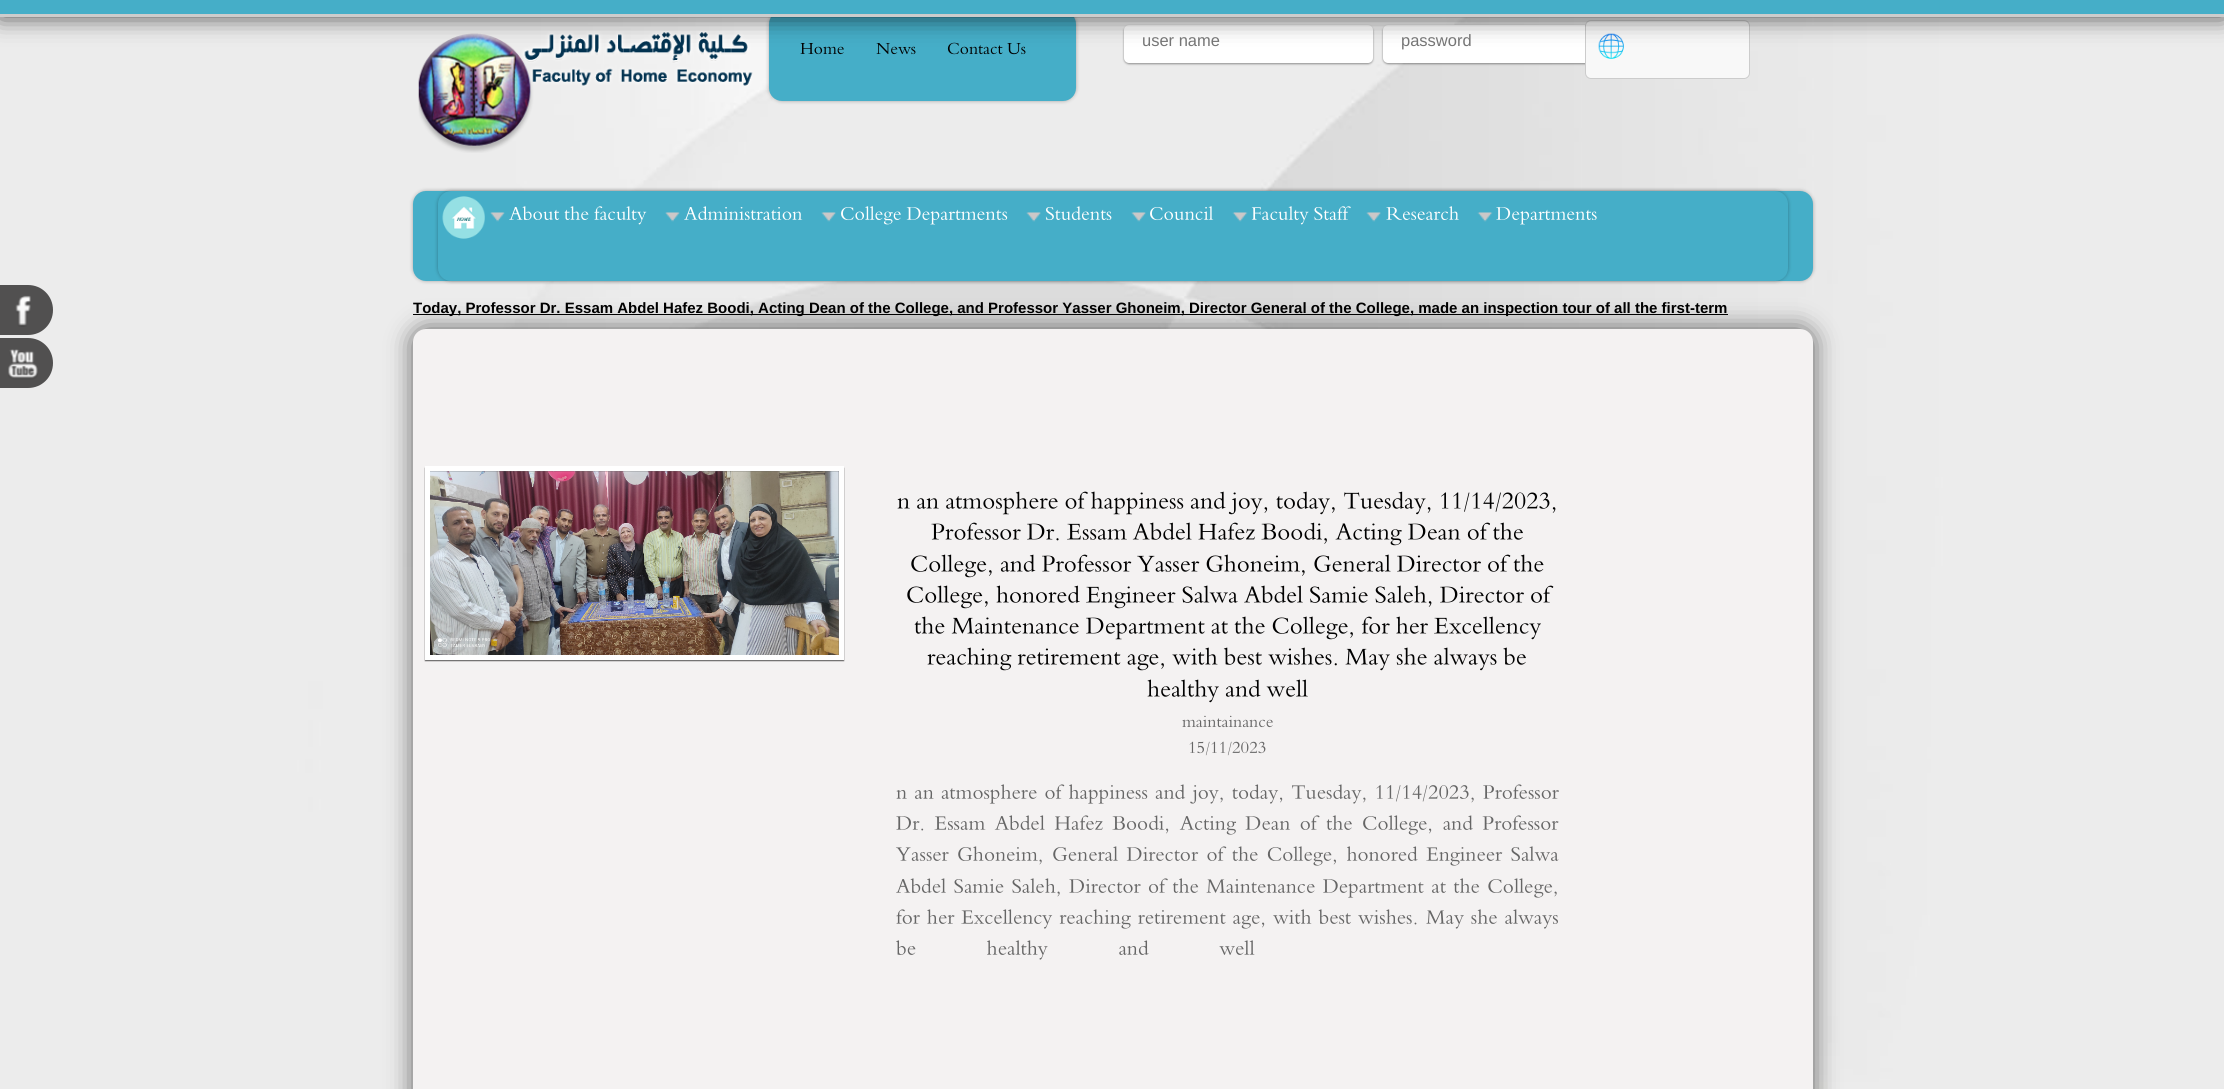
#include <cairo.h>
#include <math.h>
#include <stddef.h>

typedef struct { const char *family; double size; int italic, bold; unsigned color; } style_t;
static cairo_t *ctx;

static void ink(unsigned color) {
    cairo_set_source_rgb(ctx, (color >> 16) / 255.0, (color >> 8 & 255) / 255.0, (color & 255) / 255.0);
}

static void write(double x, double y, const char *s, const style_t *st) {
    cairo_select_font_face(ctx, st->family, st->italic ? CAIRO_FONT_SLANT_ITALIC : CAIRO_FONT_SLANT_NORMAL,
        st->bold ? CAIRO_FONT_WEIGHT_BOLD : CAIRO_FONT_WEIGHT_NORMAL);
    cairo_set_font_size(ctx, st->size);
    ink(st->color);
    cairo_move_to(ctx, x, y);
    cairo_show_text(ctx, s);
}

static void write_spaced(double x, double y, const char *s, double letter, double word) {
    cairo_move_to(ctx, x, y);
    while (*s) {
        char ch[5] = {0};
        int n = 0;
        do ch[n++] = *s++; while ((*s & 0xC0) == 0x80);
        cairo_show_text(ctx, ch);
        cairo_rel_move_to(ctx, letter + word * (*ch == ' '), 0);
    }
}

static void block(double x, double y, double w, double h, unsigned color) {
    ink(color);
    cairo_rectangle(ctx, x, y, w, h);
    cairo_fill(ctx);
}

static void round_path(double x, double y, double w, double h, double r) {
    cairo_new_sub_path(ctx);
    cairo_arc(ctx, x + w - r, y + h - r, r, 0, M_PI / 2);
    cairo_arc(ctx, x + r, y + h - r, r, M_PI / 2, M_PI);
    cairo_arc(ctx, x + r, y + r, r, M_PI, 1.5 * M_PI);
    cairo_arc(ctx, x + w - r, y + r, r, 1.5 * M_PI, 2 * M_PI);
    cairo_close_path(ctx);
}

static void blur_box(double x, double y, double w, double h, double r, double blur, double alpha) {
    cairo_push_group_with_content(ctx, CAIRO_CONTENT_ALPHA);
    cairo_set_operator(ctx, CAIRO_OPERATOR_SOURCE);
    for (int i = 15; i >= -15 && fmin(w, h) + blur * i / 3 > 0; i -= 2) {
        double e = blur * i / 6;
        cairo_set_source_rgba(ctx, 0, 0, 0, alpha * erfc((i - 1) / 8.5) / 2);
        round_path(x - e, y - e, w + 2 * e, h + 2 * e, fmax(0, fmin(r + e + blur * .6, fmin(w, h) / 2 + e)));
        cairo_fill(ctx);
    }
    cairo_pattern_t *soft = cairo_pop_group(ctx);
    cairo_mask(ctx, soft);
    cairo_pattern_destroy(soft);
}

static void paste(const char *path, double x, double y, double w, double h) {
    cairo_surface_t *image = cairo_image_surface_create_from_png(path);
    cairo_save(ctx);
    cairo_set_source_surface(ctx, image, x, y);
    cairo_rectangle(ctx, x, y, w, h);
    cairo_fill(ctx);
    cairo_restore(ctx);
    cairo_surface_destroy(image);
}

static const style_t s1 = {"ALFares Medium", 17.5, 0, 0, 0x000000};
static const style_t s2 = {"Liberation Sans", 16.5, 0, 0, 0x757575};
static const style_t s3 = {"ALFares Medium", 20, 0, 0, 0xffffff};
static const style_t s4 = {"Liberation Sans", 15, 0, 1, 0x000000};
static const style_t s5 = {"ALFares Medium", 25, 0, 0, 0x000000};
static const style_t s6 = {"ALFares Medium", 17.5, 0, 0, 0x666666};

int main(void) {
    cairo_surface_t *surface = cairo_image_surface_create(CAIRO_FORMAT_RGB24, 2224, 1089);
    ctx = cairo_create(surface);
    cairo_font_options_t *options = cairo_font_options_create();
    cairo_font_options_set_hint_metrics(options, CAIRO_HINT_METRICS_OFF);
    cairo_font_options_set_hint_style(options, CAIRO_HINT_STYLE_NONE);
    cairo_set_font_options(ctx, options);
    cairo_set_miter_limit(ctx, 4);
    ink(0xffffff);
    cairo_paint(ctx);
    paste("pic1.png", 0, 17, 2224, 1072);
    paste("pic2.png", 418, 31, 335, 122);
    ink(0x000000);
    blur_box(769, 11, 307, 90, 13, 2, 0.3);
    ink(0x45aec8);
    round_path(769, 11, 307, 90, 13);
    cairo_fill(ctx);
    ink(0x000000);
    blur_box(1124, 26, 249, 38, 5, 1, 0.4);
    ink(0xffffff);
    round_path(1124, 25, 249, 38, 5);
    cairo_fill(ctx);
    ink(0x000000);
    blur_box(1383, 26, 248, 38, 5, 1, 0.4);
    ink(0xffffff);
    round_path(1383, 25, 248, 38, 5);
    cairo_fill(ctx);
    ink(0xf8f8f8);
    round_path(1585.5, 20.5, 164, 58, 5.5);
    cairo_fill_preserve(ctx);
    ink(0xcccccc);
    cairo_set_line_width(ctx, 1);
    cairo_stroke(ctx);
    paste("pic3.png", 1598, 33, 26, 26);
    ink(0x000000);
    blur_box(0, 0, 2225, 16, 0, 12.5, 0.75);
    block(0, 0, 2224, 14, 0x45aec8);
    block(0, 14, 2224, 3, 0xcccccc);
    write(800, 55, "Home", &s1);
    write(876, 55, "News", &s1);
    write(947, 55, "Contact Us", &s1);
    write(1142, 46, "user name", &s2);
    write(1401, 46, "password", &s2);
    ink(0x000000);
    blur_box(413, 191, 1400, 90, 13, 2, 0.3);
    ink(0x45aec8);
    round_path(413, 191, 1400, 90, 13);
    cairo_fill(ctx);
    ink(0x000000);
    blur_box(438, 191, 1350, 90, 13, 2, 0.3);
    ink(0x45aec8);
    round_path(438, 191, 1350, 90, 13);
    cairo_fill(ctx);
    paste("pic4.png", 442, 196, 43, 43);
    paste("pic5.png", 490, 212, 15, 10);
    write(509, 221, "About the faculty", &s3);
    paste("pic6.png", 665, 212, 15, 10);
    write(684, 221, "Administration", &s3);
    paste("pic7.png", 821, 212, 15, 10);
    write(840, 221, "College Departments", &s3);
    paste("pic7.png", 1026, 212, 15, 10);
    write(1045, 221, "Students", &s3);
    paste("pic7.png", 1131, 212, 15, 10);
    write(1149, 221, "Council", &s3);
    paste("pic8.png", 1232, 212, 16, 10);
    write(1251, 221, "Faculty Staff", &s3);
    paste("pic7.png", 1366, 212, 15, 10);
    write(1386, 221, "Research", &s3);
    paste("pic8.png", 1477, 212, 16, 10);
    write(1496, 221, "Departments", &s3);
    ink(0x515050);
    cairo_new_path(ctx);
    cairo_move_to(ctx, -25, 285);
    cairo_line_to(ctx, 28, 285);
    cairo_curve_to(ctx, 42, 285, 53, 296, 53, 310);
    cairo_curve_to(ctx, 53, 324, 42, 335, 28, 335);
    cairo_line_to(ctx, -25, 335);
    cairo_close_path(ctx);
    cairo_fill(ctx);
    paste("pic9.png", 15, 295, 16, 32);
    cairo_new_path(ctx);
    cairo_move_to(ctx, -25, 338);
    cairo_line_to(ctx, 28, 338);
    cairo_curve_to(ctx, 42, 338, 53, 349, 53, 363);
    cairo_curve_to(ctx, 53, 377, 42, 388, 28, 388);
    cairo_line_to(ctx, -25, 388);
    cairo_close_path(ctx);
    cairo_fill(ctx);
    paste("pic10.png", 8, 349, 30, 31);
    ink(0x000000);
    blur_box(413, 329, 1400, 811, 13, 12.5, 0.6);
    block(413, 314, 1315, 1, 0x000000);
    cairo_save(ctx);
    cairo_rectangle(ctx, 413, 291, 1337, 38);
    cairo_clip(ctx);
    write(413, 313, "Today, Professor Dr. Essam Abdel Hafez Boodi, Acting Dean of the College, and Professor Yasser Ghoneim, Director General of the College, made an inspection tour of all the first-term", &s4);
    cairo_restore(ctx);
    ink(0xf4f2f2);
    round_path(413, 329, 1400, 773, 13);
    cairo_fill(ctx);
    ink(0x000000);
    blur_box(425, 468, 419, 193, 0, 0.5, 0.6);
    cairo_rectangle(ctx, 427.5, 468.5, 414, 189);
    ink(0xffffff);
    cairo_set_line_width(ctx, 5);
    cairo_stroke(ctx);
    paste("pic11.png", 430, 471, 409, 184);
    write(897, 510, "n an atmosphere of happiness and joy, today, Tuesday, 11/14/2023,", &s5);
    write(931, 541, "Professor Dr. Essam Abdel Hafez Boodi, Acting Dean of the", &s5);
    write(910, 573, "College, and Professor Yasser Ghoneim, General Director of the", &s5);
    write(906, 604, "College, honored Engineer Salwa Abdel Samie Saleh, Director of", &s5);
    write(914, 635, "the Maintenance Department at the College, for her Excellency", &s5);
    write(927, 666, "reaching retirement age, with best wishes. May she always be", &s5);
    write(1147, 698, "healthy and well", &s5);
    write(1182, 728, "maintainance", &s6);
    write(1188, 754, "15/11/2023", &s6);
    cairo_set_font_size(ctx, 21.25);
    write_spaced(896, 800, "n an atmosphere of happiness and joy, today, Tuesday, 11/14/2023, Professor", 0, 2);
    write_spaced(896, 831, "Dr. Essam Abdel Hafez Boodi, Acting Dean of the College, and Professor", 0, 4.25);
    write_spaced(896, 862, "Yasser Ghoneim, General Director of the College, honored Engineer Salwa", 0, 3.25);
    write_spaced(896, 894, "Abdel Samie Saleh, Director of the Maintenance Department at the College,", 0, 2.25);
    write_spaced(896, 925, "for her Excellency reaching retirement age, with best wishes.", 0, 1.75);
    write_spaced(1426, 925, "May she always", 0, 1.75);
    write_spaced(896, 956, "be healthy and well", 0, 65.5);
    cairo_surface_write_to_png(surface, "screenshot.png");
    cairo_font_options_destroy(options);
    cairo_destroy(ctx);
    cairo_surface_destroy(surface);
    return 0;
}
